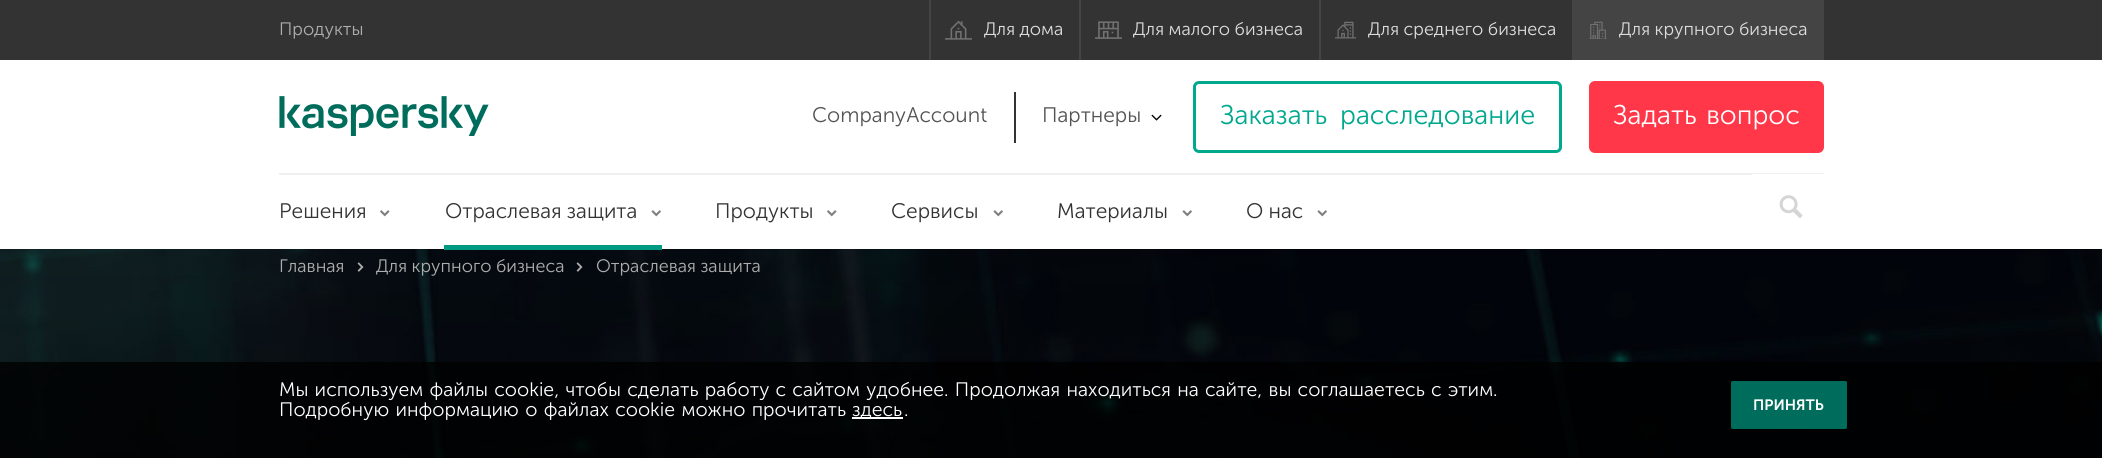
#include <cairo.h>
#include <math.h>
#include <stddef.h>

typedef struct { const char *family; double size; int italic, bold; unsigned color; } style_t;
static cairo_t *ctx;

static void ink(unsigned color) {
    cairo_set_source_rgb(ctx, (color >> 16) / 255.0, (color >> 8 & 255) / 255.0, (color & 255) / 255.0);
}

static void write(double x, double y, const char *s, const style_t *st) {
    cairo_select_font_face(ctx, st->family, st->italic ? CAIRO_FONT_SLANT_ITALIC : CAIRO_FONT_SLANT_NORMAL,
        st->bold ? CAIRO_FONT_WEIGHT_BOLD : CAIRO_FONT_WEIGHT_NORMAL);
    cairo_set_font_size(ctx, st->size);
    ink(st->color);
    cairo_move_to(ctx, x, y);
    cairo_show_text(ctx, s);
}

static void write_spaced(double x, double y, const char *s, double letter, double word) {
    cairo_move_to(ctx, x, y);
    while (*s) {
        char ch[5] = {0};
        int n = 0;
        do ch[n++] = *s++; while ((*s & 0xC0) == 0x80);
        cairo_show_text(ctx, ch);
        cairo_rel_move_to(ctx, letter + word * (*ch == ' '), 0);
    }
}

static void block(double x, double y, double w, double h, unsigned color) {
    ink(color);
    cairo_rectangle(ctx, x, y, w, h);
    cairo_fill(ctx);
}

static void round_path(double x, double y, double w, double h, double r) {
    cairo_new_sub_path(ctx);
    cairo_arc(ctx, x + w - r, y + h - r, r, 0, M_PI / 2);
    cairo_arc(ctx, x + r, y + h - r, r, M_PI / 2, M_PI);
    cairo_arc(ctx, x + r, y + r, r, M_PI, 1.5 * M_PI);
    cairo_arc(ctx, x + w - r, y + r, r, 1.5 * M_PI, 2 * M_PI);
    cairo_close_path(ctx);
}

static void paste(const char *path, double x, double y, double w, double h) {
    cairo_surface_t *image = cairo_image_surface_create_from_png(path);
    cairo_save(ctx);
    cairo_set_source_surface(ctx, image, x, y);
    cairo_rectangle(ctx, x, y, w, h);
    cairo_fill(ctx);
    cairo_restore(ctx);
    cairo_surface_destroy(image);
}

static const style_t s1 = {"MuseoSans", 18, 0, 0, 0xaeaeae};
static const style_t s2 = {"MuseoSans", 18, 0, 0, 0xdddddd};
static const style_t s3 = {"MuseoSans", 21, 0, 0, 0x535353};
static const style_t s4 = {"MuseoSans", 21, 0, 0, 0x333333};
static const style_t s5 = {"MuseoSans", 19.5, 0, 0, 0xffffff};
static const style_t s6 = {"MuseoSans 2", 15, 0, 0, 0xffffff};

int main(void) {
    cairo_surface_t *surface = cairo_image_surface_create(CAIRO_FORMAT_RGB24, 2102, 458);
    ctx = cairo_create(surface);
    cairo_font_options_t *options = cairo_font_options_create();
    cairo_font_options_set_hint_metrics(options, CAIRO_HINT_METRICS_OFF);
    cairo_font_options_set_hint_style(options, CAIRO_HINT_STYLE_NONE);
    cairo_set_font_options(ctx, options);
    cairo_set_miter_limit(ctx, 4);
    ink(0xffffff);
    cairo_paint(ctx);
    block(0, 0, 2102, 60, 0x333333);
    write(279, 35, "Продукты", &s1);
    block(929, 0, 2, 60, 0x444444);
    block(1079, 0, 2, 60, 0x444444);
    paste("pic1.png", 945, 20, 27, 20);
    write(984, 35, "Для дома", &s2);
    block(1319, 0, 2, 60, 0x444444);
    paste("pic2.png", 1095, 21, 27, 18);
    write(1133, 35, "Для малого бизнеса", &s2);
    block(1572, 0, 252, 60, 0x444444);
    paste("pic3.png", 1335, 21, 21, 18);
    write(1368, 35, "Для среднего бизнеса", &s2);
    paste("pic4.png", 1589, 21, 18, 18);
    write(1619, 35, "Для крупного бизнеса", &s2);
    paste("pic5.png", 279, 96, 210, 40);
    write(812, 122, "CompanyAccount", &s3);
    block(1014, 92, 2, 51, 0x333333);
    write(1042, 122, "Партнеры", &s3);
    paste("pic6.png", 1151, 114, 11, 7);
    round_path(1194.5, 82.5, 366, 69, 4.5);
    ink(0x00a88e);
    cairo_set_line_width(ctx, 3);
    cairo_stroke(ctx);
    cairo_set_font_size(ctx, 27);
    write_spaced(1220, 124, "Заказать расследование", 0, 6);
    ink(0xff3748);
    round_path(1589, 81, 235, 72, 6);
    cairo_fill(ctx);
    ink(0xffffff);
    write_spaced(1613, 124, "Задать вопрос", 0, 3);
    block(279, 173, 1545, 2, 0xefefef);
    write(279, 218, "Решения", &s4);
    paste("pic7.png", 380, 210, 10, 7);
    write(445, 218, "Отраслевая защита", &s4);
    paste("pic8.png", 651, 210, 10, 7);
    paste("pic10.png", 0, 249, 2102, 209);
    block(444, 245, 218, 5, 0x009981);
    write(715, 218, "Продукты", &s4);
    paste("pic7.png", 827, 210, 10, 7);
    write(891, 218, "Сервисы", &s4);
    paste("pic8.png", 993, 210, 10, 7);
    write(1057, 218, "Материалы", &s4);
    paste("pic8.png", 1182, 210, 10, 7);
    write(1246, 218, "О нас", &s4);
    paste("pic8.png", 1317, 210, 10, 7);
    block(1752, 174, 72, 1, 0xffffff);
    paste("pic9.png", 1779, 195, 24, 23);
    write(279, 272, "Главная", &s1);
    paste("pic11.png", 357, 262, 7, 10);
    write(376, 272, "Для крупного бизнеса", &s1);
    paste("pic12.png", 576, 262, 7, 10);
    write(596, 272, "Отраслевая защита", &s1);
    cairo_set_source_rgba(ctx, 0, 0, 0, 0.8);
    cairo_rectangle(ctx, 0, 362, 2102, 96);
    cairo_fill(ctx);
    cairo_set_font_size(ctx, 19.5);
    ink(0xffffff);
    write_spaced(279, 396, "Мы используем файлы cookie, чтобы сделать работу с сайтом удобнее. Продолжая находиться на сайте, вы соглашаетесь с этим.", 0, 1.3);
    write_spaced(279, 416, "Подробную информацию о файлах cookie можно прочитать", 0, 1.5);
    block(852, 417, 51, 2, 0xffffff);
    write(852, 416, "здесь", &s5);
    write(904, 416, ".", &s5);
    ink(0x006d5c);
    round_path(1732, 382, 114, 46, 0.5);
    cairo_fill_preserve(ctx);
    cairo_set_line_width(ctx, 2);
    cairo_stroke(ctx);
    write(1753, 410, "ПРИНЯТЬ", &s6);
    cairo_surface_write_to_png(surface, "screenshot.png");
    cairo_font_options_destroy(options);
    cairo_destroy(ctx);
    cairo_surface_destroy(surface);
    return 0;
}
